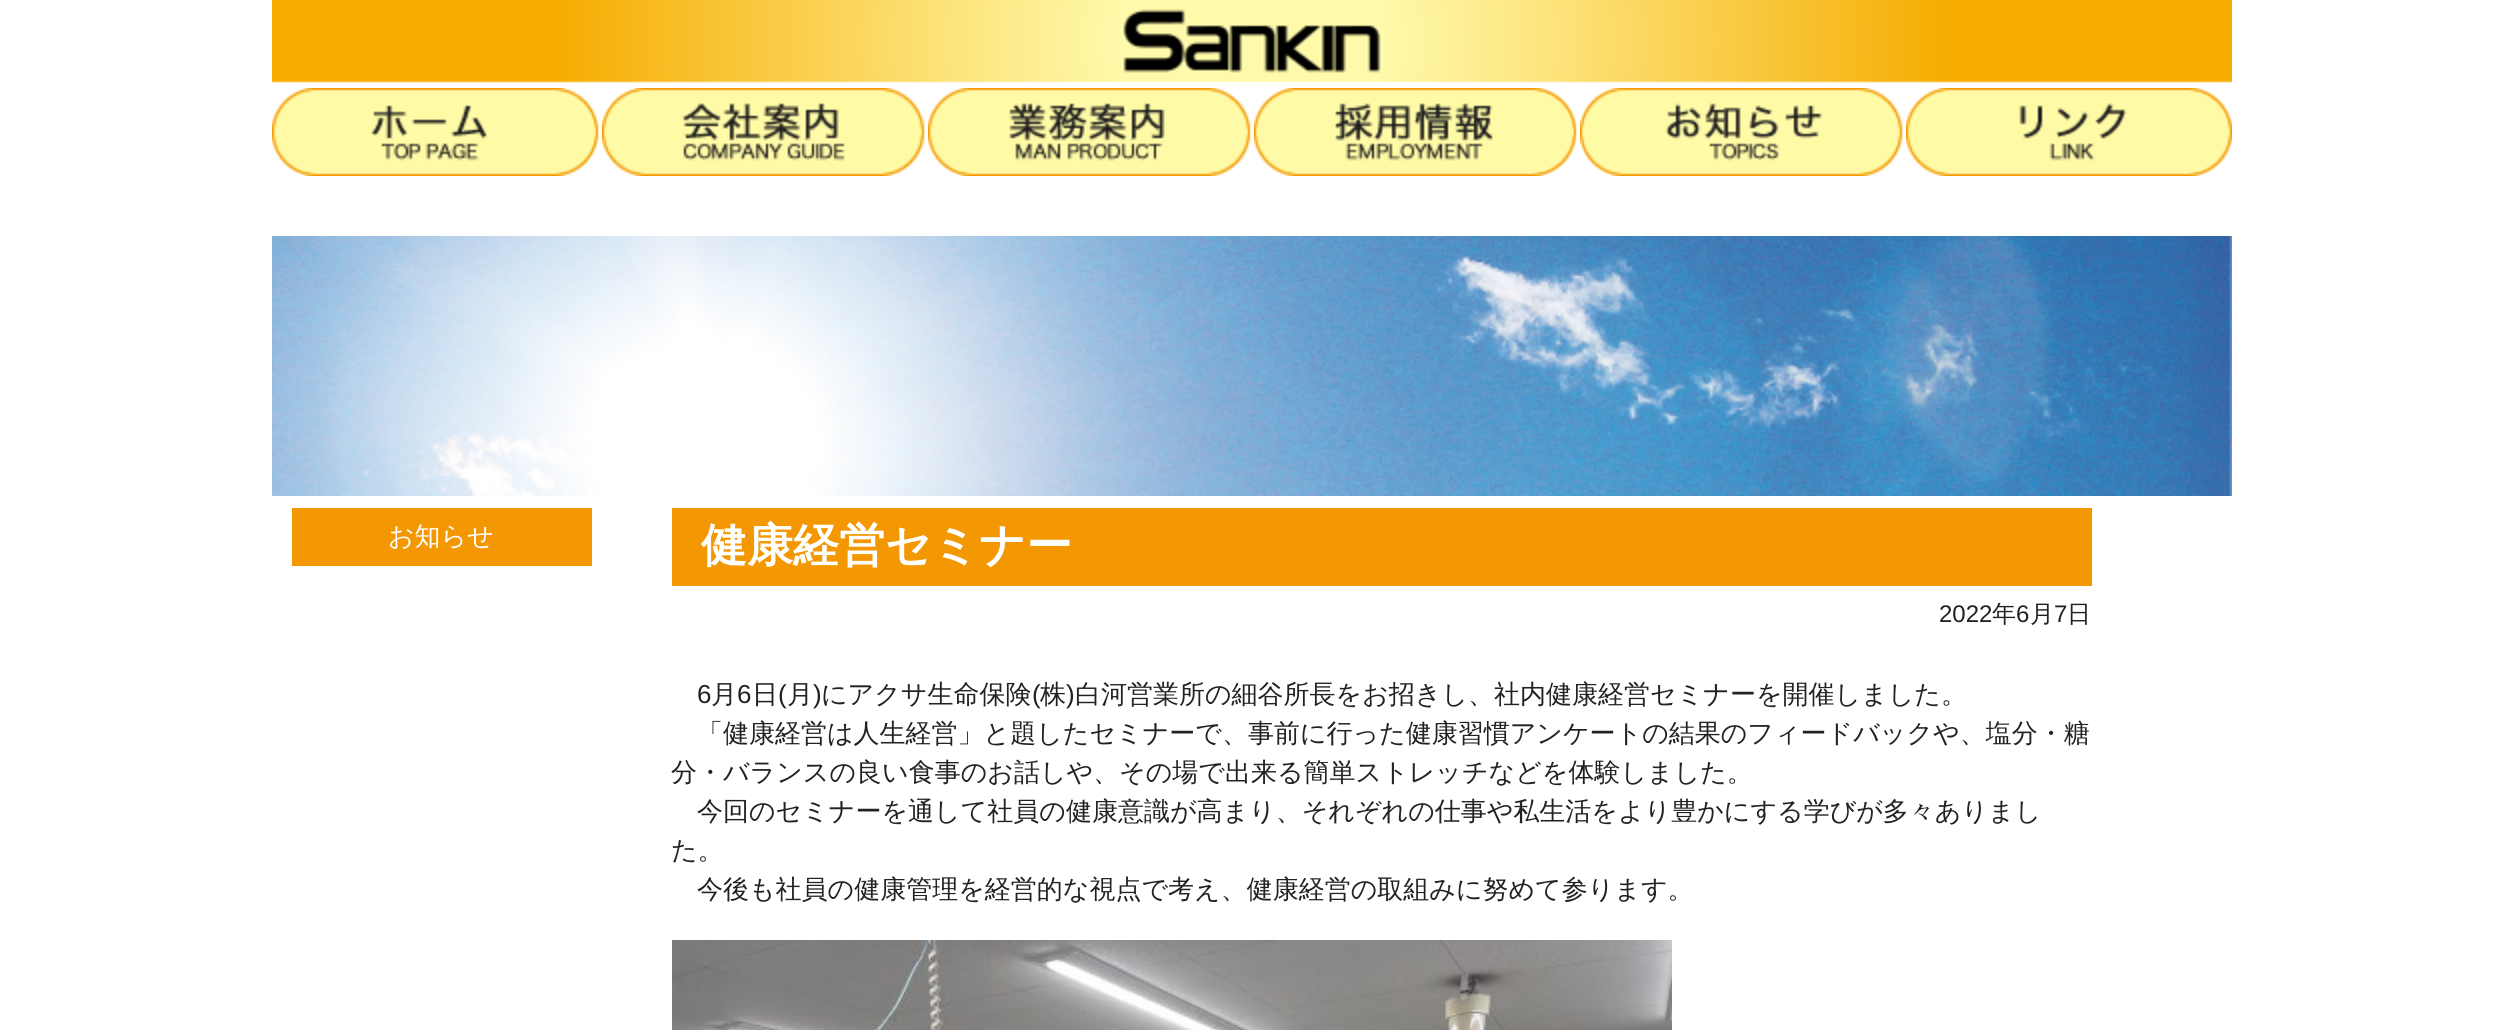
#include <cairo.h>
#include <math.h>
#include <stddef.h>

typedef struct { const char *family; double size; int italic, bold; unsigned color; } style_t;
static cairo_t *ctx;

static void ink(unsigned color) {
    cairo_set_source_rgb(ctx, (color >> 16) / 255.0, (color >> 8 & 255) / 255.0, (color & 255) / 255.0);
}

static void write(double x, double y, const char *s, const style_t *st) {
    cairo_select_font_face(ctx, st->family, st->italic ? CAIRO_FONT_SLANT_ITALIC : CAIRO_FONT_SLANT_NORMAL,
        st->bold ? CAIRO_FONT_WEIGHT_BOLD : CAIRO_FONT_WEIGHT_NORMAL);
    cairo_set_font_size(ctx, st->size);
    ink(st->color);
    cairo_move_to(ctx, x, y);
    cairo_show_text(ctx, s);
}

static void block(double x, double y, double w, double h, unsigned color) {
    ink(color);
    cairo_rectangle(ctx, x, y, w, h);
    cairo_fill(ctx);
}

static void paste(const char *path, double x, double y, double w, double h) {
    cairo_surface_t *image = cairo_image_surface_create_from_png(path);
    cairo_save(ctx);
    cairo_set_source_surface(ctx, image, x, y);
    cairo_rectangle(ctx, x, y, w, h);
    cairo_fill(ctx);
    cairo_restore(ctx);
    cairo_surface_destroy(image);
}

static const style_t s1 = {"WenQuanYi Zen Hei Medium", 26, 0, 0, 0xffffff};
static const style_t s2 = {"WenQuanYi Zen Hei", 46, 0, 1, 0xffffff};
static const style_t s3 = {"Liberation Sans", 24, 0, 0, 0x222222};
static const style_t s4 = {"WenQuanYi Zen Hei Medium", 24, 0, 0, 0x222222};
static const style_t s5 = {"Liberation Sans", 26, 0, 0, 0x222222};
static const style_t s6 = {"WenQuanYi Zen Hei Medium", 26, 0, 0, 0x222222};

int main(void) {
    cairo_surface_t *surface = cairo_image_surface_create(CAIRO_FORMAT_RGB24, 2501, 1030);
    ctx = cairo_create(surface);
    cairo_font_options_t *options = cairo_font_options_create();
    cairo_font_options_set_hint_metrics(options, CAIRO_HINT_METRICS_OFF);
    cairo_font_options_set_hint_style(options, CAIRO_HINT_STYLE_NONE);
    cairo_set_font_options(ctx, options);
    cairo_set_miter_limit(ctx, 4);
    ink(0xffffff);
    cairo_paint(ctx);
    paste("pic1.png", 272, 0, 1960, 83);
    paste("pic2.png", 272, 88, 327, 88);
    paste("pic3.png", 602, 88, 323, 88);
    paste("pic4.png", 928, 88, 323, 88);
    paste("pic5.png", 1254, 88, 323, 88);
    paste("pic6.png", 1580, 88, 323, 88);
    paste("pic7.png", 1906, 88, 326, 88);
    paste("pic8.png", 272, 236, 1960, 260);
    block(292, 508, 300, 58, 0xf39802);
    write(388, 545, "お知らせ", &s1);
    block(672, 508, 1420, 78, 0xf39802);
    write(701, 561, "健康経営セミナー", &s2);
    write(1939, 622, "2022", &s3);
    write(1992, 622, "年", &s4);
    write(2016, 622, "6", &s3);
    write(2030, 622, "月", &s4);
    write(2054, 622, "7", &s3);
    write(2067, 622, "日", &s4);
    write(697, 703, "6", &s5);
    write(711, 703, "月", &s6);
    write(737, 703, "6", &s5);
    write(752, 703, "日", &s6);
    write(778, 703, "(", &s5);
    write(787, 703, "月", &s6);
    write(813, 703, ")", &s5);
    write(821, 703, "にアクサ生命保険", &s6);
    write(1032, 703, "(", &s5);
    write(1040, 703, "株", &s6);
    write(1066, 703, ")", &s5);
    write(1075, 703, "白河営業所の細谷所長をお招きし、社内健康経営セミナーを開催しました。", &s6);
    write(697, 742, "「健康経営は人生経営」と題したセミナーで、事前に行った健康習慣アンケートの結果のフィードバックや、塩分・糖", &s6);
    write(671, 781, "分・バランスの良い食事のお話しや、その場で出来る簡単ストレッチなどを体験しました。", &s6);
    write(697, 820, "今回のセミナーを通して社員の健康意識が高まり、それぞれの仕事や私生活をより豊かにする学びが多々ありまし", &s6);
    write(671, 859, "た。", &s6);
    write(697, 898, "今後も社員の健康管理を経営的な視点で考え、健康経営の取組みに努めて参ります。", &s6);
    paste("pic9.png", 672, 940, 1000, 90);
    cairo_surface_write_to_png(surface, "screenshot.png");
    cairo_font_options_destroy(options);
    cairo_destroy(ctx);
    cairo_surface_destroy(surface);
    return 0;
}
